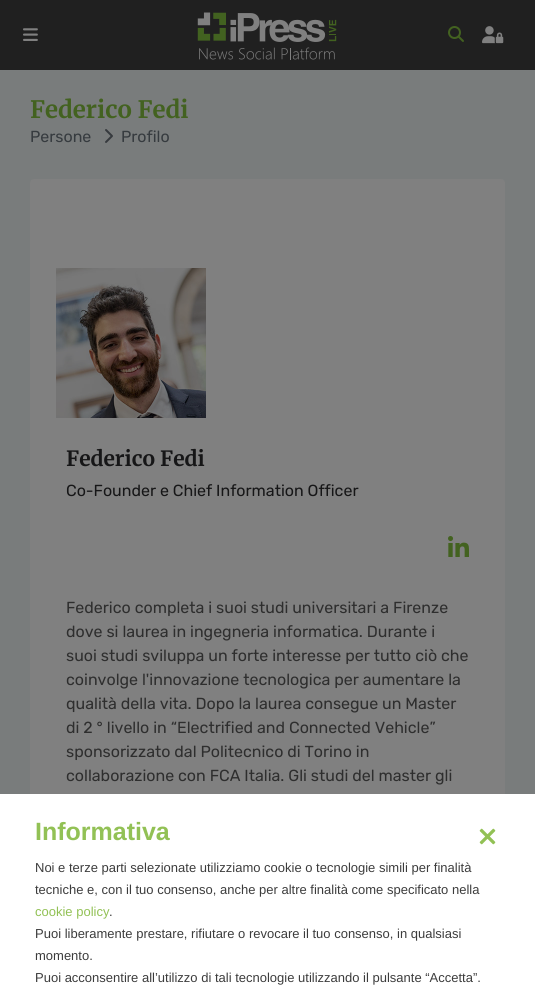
#include <cairo.h>
#include <math.h>
#include <stddef.h>

typedef struct { const char *family; double size; int italic, bold; unsigned color; } style_t;
static cairo_t *ctx;

static void ink(unsigned color) {
    cairo_set_source_rgb(ctx, (color >> 16) / 255.0, (color >> 8 & 255) / 255.0, (color & 255) / 255.0);
}

static void write(double x, double y, const char *s, const style_t *st) {
    cairo_select_font_face(ctx, st->family, st->italic ? CAIRO_FONT_SLANT_ITALIC : CAIRO_FONT_SLANT_NORMAL,
        st->bold ? CAIRO_FONT_WEIGHT_BOLD : CAIRO_FONT_WEIGHT_NORMAL);
    cairo_set_font_size(ctx, st->size);
    ink(st->color);
    cairo_move_to(ctx, x, y);
    cairo_show_text(ctx, s);
}

static void block(double x, double y, double w, double h, unsigned color) {
    ink(color);
    cairo_rectangle(ctx, x, y, w, h);
    cairo_fill(ctx);
}

static void round_path(double x, double y, double w, double h, double r) {
    cairo_new_sub_path(ctx);
    cairo_arc(ctx, x + w - r, y + h - r, r, 0, M_PI / 2);
    cairo_arc(ctx, x + r, y + h - r, r, M_PI / 2, M_PI);
    cairo_arc(ctx, x + r, y + r, r, M_PI, 1.5 * M_PI);
    cairo_arc(ctx, x + w - r, y + r, r, 1.5 * M_PI, 2 * M_PI);
    cairo_close_path(ctx);
}

static void paste(const char *path, double x, double y, double w, double h) {
    cairo_surface_t *image = cairo_image_surface_create_from_png(path);
    cairo_save(ctx);
    cairo_set_source_surface(ctx, image, x, y);
    cairo_rectangle(ctx, x, y, w, h);
    cairo_fill(ctx);
    cairo_restore(ctx);
    cairo_surface_destroy(image);
}

static const style_t s1 = {"Merriweather", 24, 0, 1, 0x436220};
static const style_t s2 = {"Rubik", 16, 0, 0, 0x363b3f};
static const style_t s3 = {"Merriweather", 21, 0, 1, 0x161617};
static const style_t s4 = {"Rubik", 16, 0, 0, 0x161617};
static const style_t s5 = {"Rubik", 16, 0, 0, 0x2e2e2e};
static const style_t s6 = {"Liberation Sans", 25, 0, 1, 0x92c155};
static const style_t s7 = {"Liberation Sans", 13, 0, 0, 0x3c3c3c};
static const style_t s8 = {"Liberation Sans", 13, 0, 0, 0x92c155};

int main(void) {
    cairo_surface_t *surface = cairo_image_surface_create(CAIRO_FORMAT_RGB24, 535, 998);
    ctx = cairo_create(surface);
    cairo_font_options_t *options = cairo_font_options_create();
    cairo_font_options_set_hint_metrics(options, CAIRO_HINT_METRICS_OFF);
    cairo_font_options_set_hint_style(options, CAIRO_HINT_STYLE_NONE);
    cairo_set_font_options(ctx, options);
    cairo_set_miter_limit(ctx, 4);
    ink(0x797c7c);
    cairo_paint(ctx);
    block(0, 0, 535, 70, 0x202020);
    paste("pic1.png", 23, 28, 15, 13);
    paste("pic2.png", 197, 12, 140, 48);
    paste("pic3.png", 448, 26, 16, 16);
    paste("pic4.png", 482, 26, 22, 18);
    write(30, 118, "Federico Fedi", &s1);
    write(30, 142, "Persone", &s2);
    paste("pic5.png", 105, 129, 8, 14);
    write(121, 142, "Profilo", &s2);
    ink(0x808080);
    round_path(30, 179, 475, 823, 4);
    cairo_fill(ctx);
    paste("pic6.png", 56, 268, 150, 150);
    write(66, 466, "Federico Fedi", &s3);
    write(66, 496, "Co-Founder e Chief Information Officer", &s4);
    paste("pic7.png", 448, 536, 21, 21);
    write(66, 613, "Federico completa i suoi studi universitari a Firenze", &s5);
    write(66, 637, "dove si laurea in ingegneria informatica. Durante i", &s5);
    write(66, 661, "suoi studi sviluppa un forte interesse per tutto ciò che", &s5);
    write(66, 685, "coinvolge l'innovazione tecnologica per aumentare la", &s5);
    write(66, 709, "qualità della vita. Dopo la laurea consegue un Master", &s5);
    write(66, 733, "di 2 ° livello in “Electrified and Connected Vehicle”", &s5);
    write(66, 757, "sponsorizzato dal Politecnico di Torino in", &s5);
    write(66, 781, "collaborazione con FCA Italia. Gli studi del master gli", &s5);
    block(0, 794, 535, 204, 0xffffff);
    write(35, 840, "Informativa", &s6);
    paste("pic8.png", 479, 828, 17, 17);
    write(35, 872, "Noi e terze parti selezionate utilizziamo cookie o tecnologie simili per finalità", &s7);
    write(35, 894, "tecniche e, con il tuo consenso, anche per altre finalità come specificato nella", &s7);
    write(35, 916, "cookie policy", &s8);
    write(109, 916, ".", &s7);
    write(35, 938, "Puoi liberamente prestare, rifiutare o revocare il tuo consenso, in qualsiasi", &s7);
    write(35, 960, "momento.", &s7);
    write(35, 982, "Puoi acconsentire all’utilizzo di tali tecnologie utilizzando il pulsante “Accetta”.", &s7);
    cairo_surface_write_to_png(surface, "screenshot.png");
    cairo_font_options_destroy(options);
    cairo_destroy(ctx);
    cairo_surface_destroy(surface);
    return 0;
}
